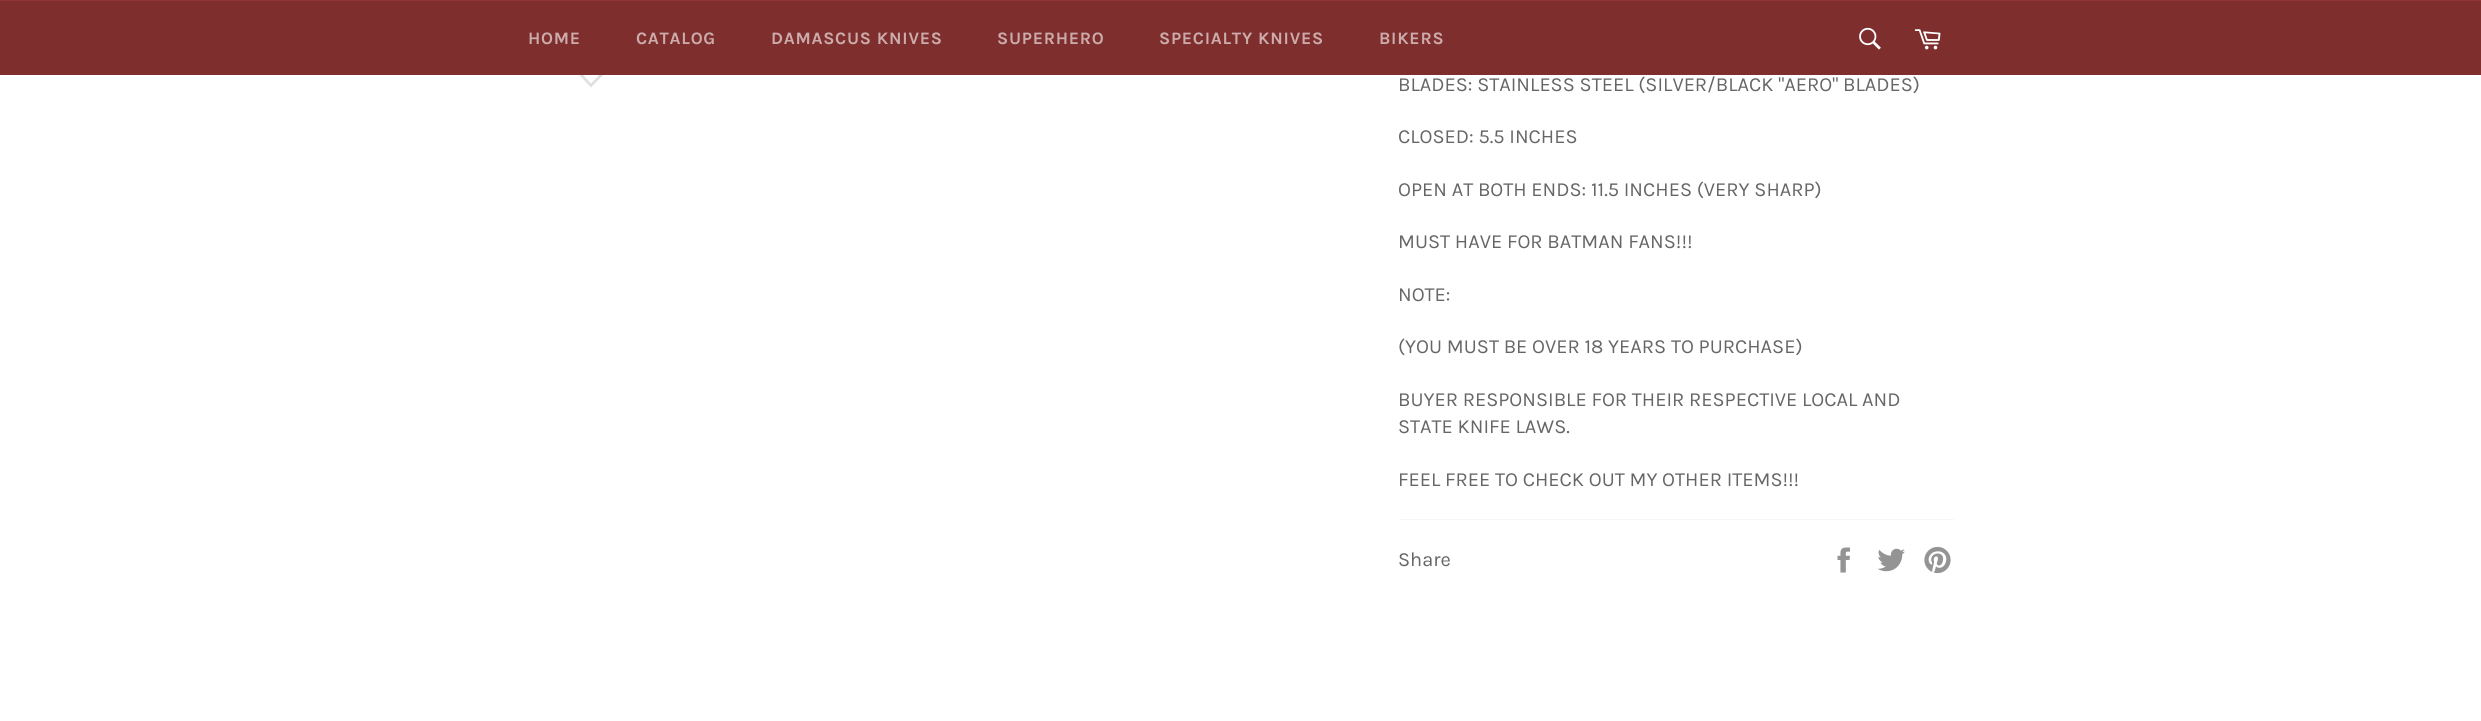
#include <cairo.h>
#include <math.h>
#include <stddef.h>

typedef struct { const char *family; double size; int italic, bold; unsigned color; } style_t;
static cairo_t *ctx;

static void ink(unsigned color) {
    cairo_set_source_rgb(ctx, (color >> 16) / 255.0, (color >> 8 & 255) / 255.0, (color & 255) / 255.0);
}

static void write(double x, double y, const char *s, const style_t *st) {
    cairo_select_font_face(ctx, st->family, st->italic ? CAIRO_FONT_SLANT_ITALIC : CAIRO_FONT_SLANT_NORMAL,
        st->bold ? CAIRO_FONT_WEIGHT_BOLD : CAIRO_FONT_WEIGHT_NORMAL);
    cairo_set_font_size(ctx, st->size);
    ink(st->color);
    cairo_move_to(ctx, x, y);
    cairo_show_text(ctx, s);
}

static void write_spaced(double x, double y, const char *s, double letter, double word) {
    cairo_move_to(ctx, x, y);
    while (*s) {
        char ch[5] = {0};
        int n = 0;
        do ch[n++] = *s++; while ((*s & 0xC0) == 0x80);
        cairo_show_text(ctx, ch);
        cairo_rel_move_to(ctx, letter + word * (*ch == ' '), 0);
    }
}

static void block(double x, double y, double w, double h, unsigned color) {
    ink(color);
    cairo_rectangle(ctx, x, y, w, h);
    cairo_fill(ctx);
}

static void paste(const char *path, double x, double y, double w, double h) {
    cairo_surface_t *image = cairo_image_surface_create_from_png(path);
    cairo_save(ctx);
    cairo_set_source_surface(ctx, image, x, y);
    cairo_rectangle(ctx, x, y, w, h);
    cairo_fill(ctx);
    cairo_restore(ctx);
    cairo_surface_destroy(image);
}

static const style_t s1 = {"Karla", 20, 0, 0, 0x666666};

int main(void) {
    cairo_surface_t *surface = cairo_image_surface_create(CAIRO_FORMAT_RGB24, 2481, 721);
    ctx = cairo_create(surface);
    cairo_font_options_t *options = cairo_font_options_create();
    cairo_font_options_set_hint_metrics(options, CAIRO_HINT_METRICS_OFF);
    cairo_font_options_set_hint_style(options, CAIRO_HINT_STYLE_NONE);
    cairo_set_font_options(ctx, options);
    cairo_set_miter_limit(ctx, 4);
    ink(0xffffff);
    cairo_paint(ctx);
    ink(0xe0e0e0);
    cairo_new_path(ctx);
    cairo_move_to(ctx, 604, 70);
    cairo_line_to(ctx, 606, 72);
    cairo_line_to(ctx, 591, 87.5);
    cairo_line_to(ctx, 576.5, 72);
    cairo_line_to(ctx, 578.5, 70);
    cairo_line_to(ctx, 591, 83.5);
    cairo_close_path(ctx);
    cairo_fill(ctx);
    block(0, 1, 2481, 74, 0x7f2e2e);
    block(0, 0, 2481, 1, 0x923535);
    cairo_select_font_face(ctx, "Karla", CAIRO_FONT_SLANT_NORMAL, CAIRO_FONT_WEIGHT_BOLD);
    cairo_set_font_size(ctx, 17.5);
    ink(0xccabab);
    write_spaced(528, 44, "HOME", 0.75, 0);
    write_spaced(636, 44, "CATALOG", 0.75, 0);
    write_spaced(771, 44, "DAMASCUS KNIVES", 0.75, 0);
    write_spaced(997, 44, "SUPERHERO", 0.75, 0);
    write_spaced(1159, 44, "SPECIALTY KNIVES", 0.75, 0);
    write_spaced(1379, 44, "BIKERS", 0.75, 0);
    paste("pic1.png", 1859, 27, 22, 23);
    paste("pic2.png", 1914, 29, 27, 21);
    write(1398, 91, "BLADES: STAINLESS STEEL (SILVER/BLACK \"AERO\" BLADES)", &s1);
    write(1398, 143, "CLOSED: 5.5 INCHES", &s1);
    write(1398, 196, "OPEN AT BOTH ENDS: 11.5 INCHES (VERY SHARP)", &s1);
    write(1398, 248, "MUST HAVE FOR BATMAN FANS!!!", &s1);
    write(1398, 301, "NOTE:", &s1);
    write(1398, 353, "(YOU MUST BE OVER 18 YEARS TO PURCHASE)", &s1);
    write(1398, 406, "BUYER RESPONSIBLE FOR THEIR RESPECTIVE LOCAL AND", &s1);
    write(1398, 433, "STATE KNIFE LAWS.", &s1);
    write(1398, 486, "FEEL FREE TO CHECK OUT MY OTHER ITEMS!!!", &s1);
    block(1399, 519, 555, 1, 0xf7f7f7);
    write(1398, 566, "Share", &s1);
    paste("pic3.png", 1837, 547, 13, 26);
    paste("pic4.png", 1877, 548, 28, 24);
    paste("pic5.png", 1924, 546, 27, 28);
    cairo_surface_write_to_png(surface, "screenshot.png");
    cairo_font_options_destroy(options);
    cairo_destroy(ctx);
    cairo_surface_destroy(surface);
    return 0;
}
